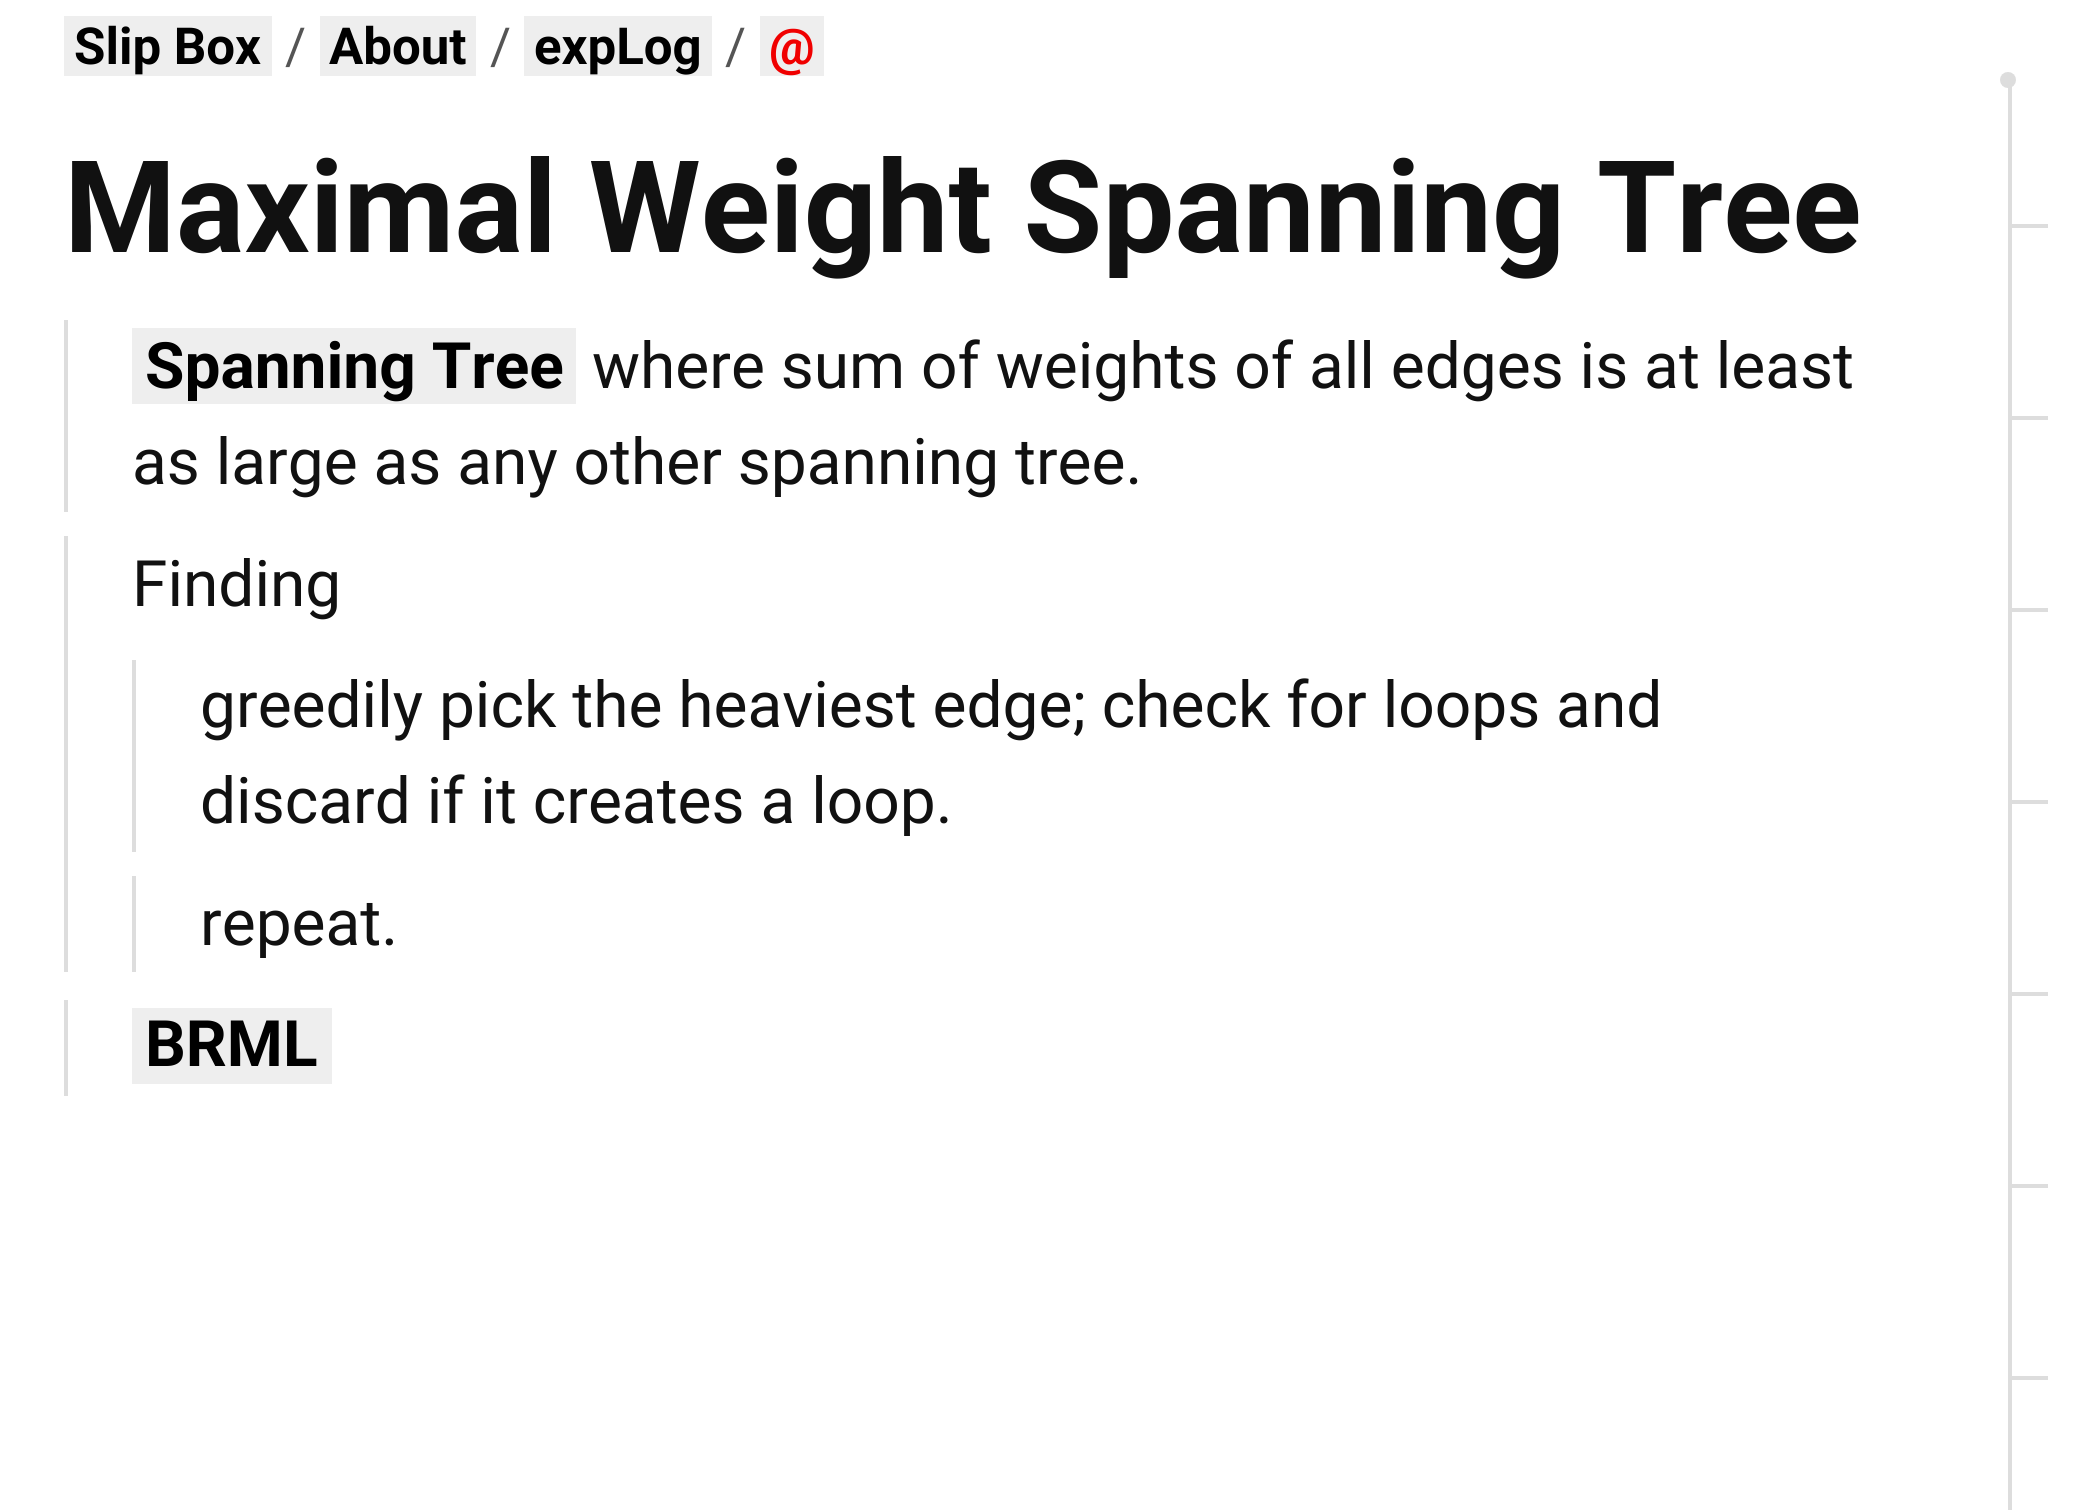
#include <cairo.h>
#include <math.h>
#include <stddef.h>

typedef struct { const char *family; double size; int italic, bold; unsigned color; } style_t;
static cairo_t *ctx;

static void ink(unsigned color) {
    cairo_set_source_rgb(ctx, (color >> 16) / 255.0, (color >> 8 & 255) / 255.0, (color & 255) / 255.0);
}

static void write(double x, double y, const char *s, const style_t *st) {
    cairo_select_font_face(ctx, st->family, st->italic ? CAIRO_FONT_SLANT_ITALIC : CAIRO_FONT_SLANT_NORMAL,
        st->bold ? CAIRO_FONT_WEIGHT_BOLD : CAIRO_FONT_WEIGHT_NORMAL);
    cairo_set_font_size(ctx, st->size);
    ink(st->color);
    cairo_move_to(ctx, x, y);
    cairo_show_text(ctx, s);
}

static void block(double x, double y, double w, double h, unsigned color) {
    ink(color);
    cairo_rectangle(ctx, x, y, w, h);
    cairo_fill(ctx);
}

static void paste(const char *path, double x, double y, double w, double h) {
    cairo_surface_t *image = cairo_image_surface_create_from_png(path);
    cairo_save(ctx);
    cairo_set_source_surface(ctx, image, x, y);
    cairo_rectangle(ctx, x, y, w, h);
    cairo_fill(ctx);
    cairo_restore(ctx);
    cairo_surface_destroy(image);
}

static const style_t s1 = {"Roboto", 51, 0, 1, 0x000000};
static const style_t s2 = {"Roboto", 51, 0, 0, 0x555555};
static const style_t s3 = {"Roboto", 51, 0, 1, 0xf00000};
static const style_t s4 = {"Roboto", 128, 0, 1, 0x111111};
static const style_t s5 = {"Roboto", 64, 0, 1, 0x000000};
static const style_t s6 = {"Roboto", 64, 0, 0, 0x111111};

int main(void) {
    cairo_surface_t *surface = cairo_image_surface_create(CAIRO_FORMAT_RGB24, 2086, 1510);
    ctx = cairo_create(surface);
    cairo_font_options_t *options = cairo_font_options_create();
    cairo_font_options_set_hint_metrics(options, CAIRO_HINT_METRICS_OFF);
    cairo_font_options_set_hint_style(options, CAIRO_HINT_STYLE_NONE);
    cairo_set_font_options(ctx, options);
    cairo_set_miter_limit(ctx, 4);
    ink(0xffffff);
    cairo_paint(ctx);
    paste("pic1.png", 2000, 72, 48, 1438);
    block(64, 16, 208, 60, 0xeeeeee);
    write(74, 64, "Slip Box", &s1);
    write(285, 64, "/", &s2);
    block(320, 16, 156, 60, 0xeeeeee);
    write(329, 64, "About", &s1);
    write(490, 64, "/", &s2);
    block(524, 16, 188, 60, 0xeeeeee);
    write(534, 64, "expLog", &s1);
    write(725, 64, "/", &s2);
    block(760, 16, 64, 60, 0xeeeeee);
    write(769, 64, "@", &s3);
    write(64, 252, "Maximal Weight Spanning Tree", &s4);
    block(64, 320, 4, 192, 0xdddddd);
    block(132, 328, 444, 76, 0xeeeeee);
    write(145, 388, "Spanning Tree", &s5);
    write(592, 388, "where sum of weights of all edges is at least", &s6);
    write(132, 484, "as large as any other spanning tree.", &s6);
    block(64, 536, 4, 436, 0xdddddd);
    write(132, 606, "Finding", &s6);
    block(132, 660, 4, 192, 0xdddddd);
    write(200, 727, "greedily pick the heaviest edge; check for loops and", &s6);
    write(200, 823, "discard if it creates a loop.", &s6);
    block(132, 876, 4, 96, 0xdddddd);
    write(200, 945, "repeat.", &s6);
    block(64, 1000, 4, 96, 0xdddddd);
    block(132, 1008, 200, 76, 0xeeeeee);
    write(145, 1066, "BRML", &s5);
    cairo_surface_write_to_png(surface, "screenshot.png");
    cairo_font_options_destroy(options);
    cairo_destroy(ctx);
    cairo_surface_destroy(surface);
    return 0;
}
